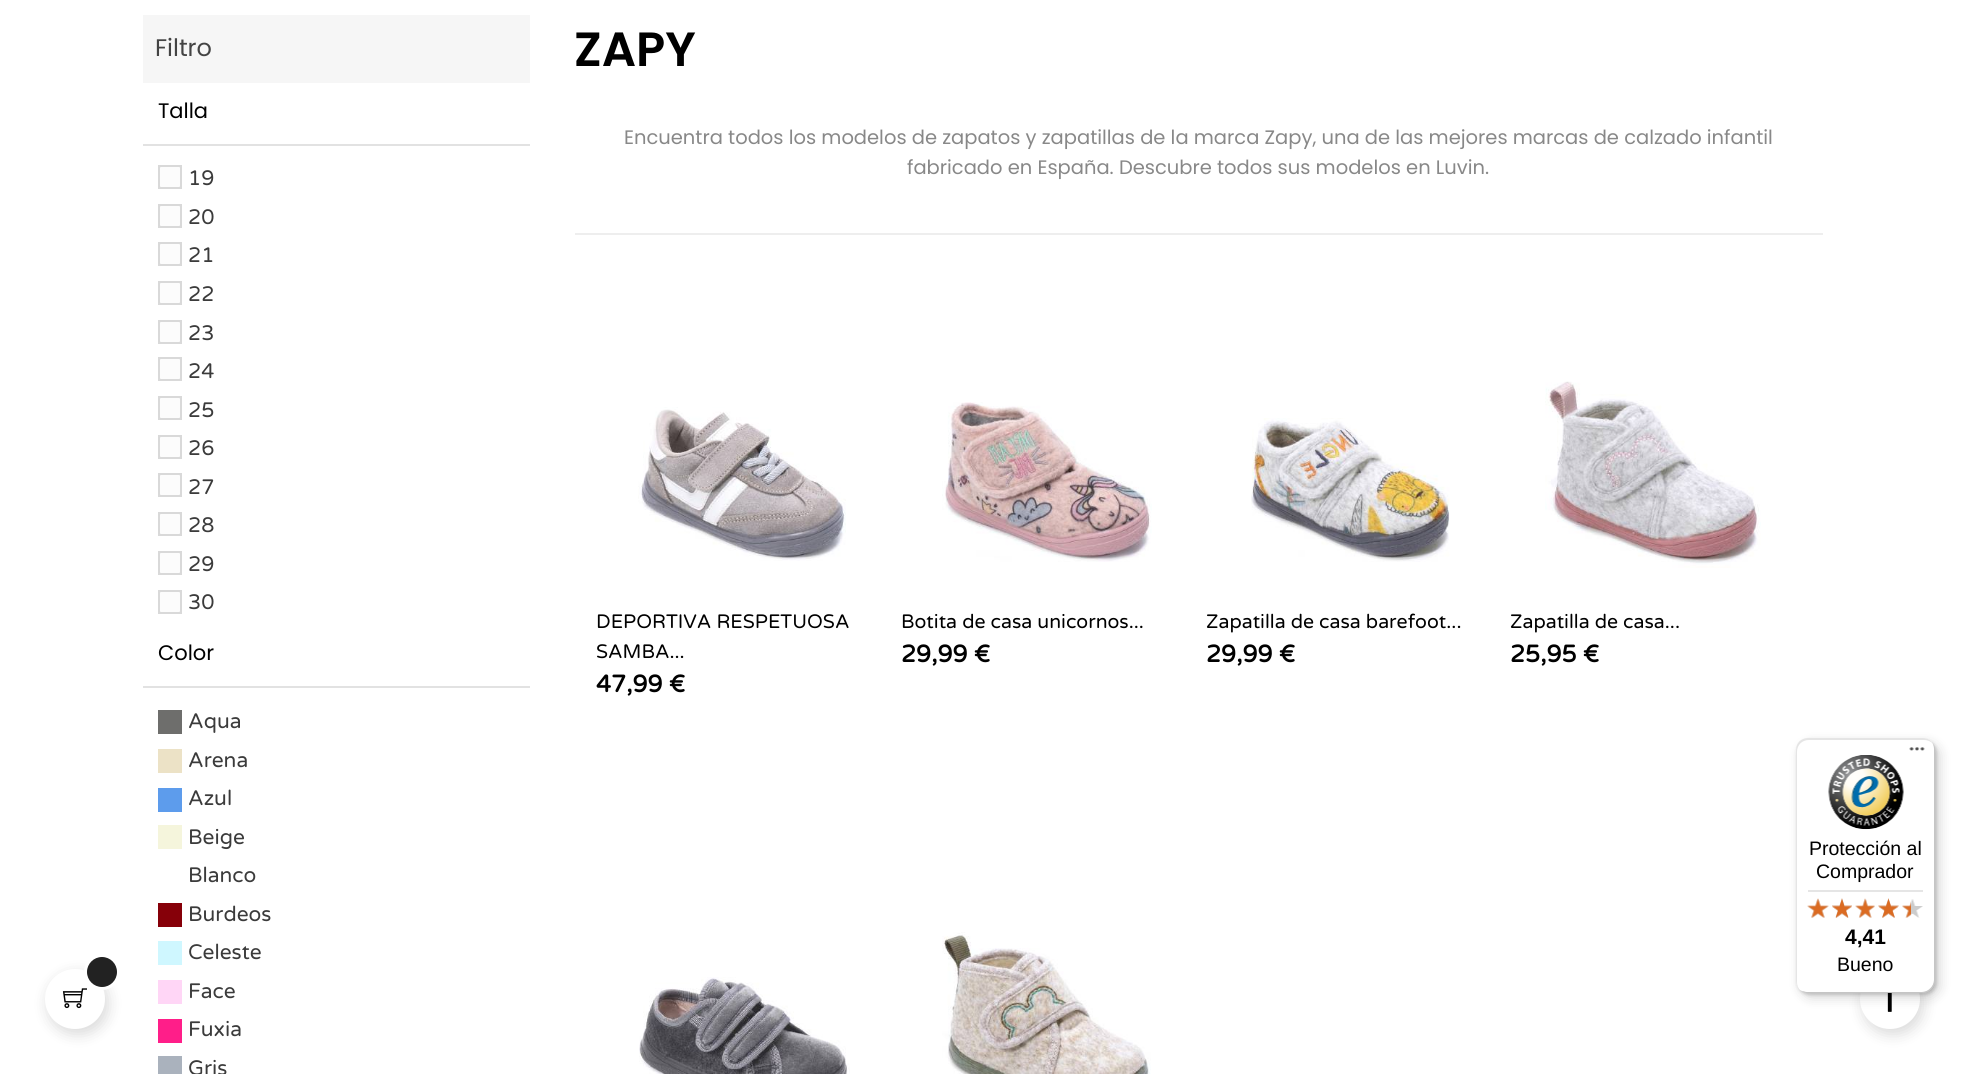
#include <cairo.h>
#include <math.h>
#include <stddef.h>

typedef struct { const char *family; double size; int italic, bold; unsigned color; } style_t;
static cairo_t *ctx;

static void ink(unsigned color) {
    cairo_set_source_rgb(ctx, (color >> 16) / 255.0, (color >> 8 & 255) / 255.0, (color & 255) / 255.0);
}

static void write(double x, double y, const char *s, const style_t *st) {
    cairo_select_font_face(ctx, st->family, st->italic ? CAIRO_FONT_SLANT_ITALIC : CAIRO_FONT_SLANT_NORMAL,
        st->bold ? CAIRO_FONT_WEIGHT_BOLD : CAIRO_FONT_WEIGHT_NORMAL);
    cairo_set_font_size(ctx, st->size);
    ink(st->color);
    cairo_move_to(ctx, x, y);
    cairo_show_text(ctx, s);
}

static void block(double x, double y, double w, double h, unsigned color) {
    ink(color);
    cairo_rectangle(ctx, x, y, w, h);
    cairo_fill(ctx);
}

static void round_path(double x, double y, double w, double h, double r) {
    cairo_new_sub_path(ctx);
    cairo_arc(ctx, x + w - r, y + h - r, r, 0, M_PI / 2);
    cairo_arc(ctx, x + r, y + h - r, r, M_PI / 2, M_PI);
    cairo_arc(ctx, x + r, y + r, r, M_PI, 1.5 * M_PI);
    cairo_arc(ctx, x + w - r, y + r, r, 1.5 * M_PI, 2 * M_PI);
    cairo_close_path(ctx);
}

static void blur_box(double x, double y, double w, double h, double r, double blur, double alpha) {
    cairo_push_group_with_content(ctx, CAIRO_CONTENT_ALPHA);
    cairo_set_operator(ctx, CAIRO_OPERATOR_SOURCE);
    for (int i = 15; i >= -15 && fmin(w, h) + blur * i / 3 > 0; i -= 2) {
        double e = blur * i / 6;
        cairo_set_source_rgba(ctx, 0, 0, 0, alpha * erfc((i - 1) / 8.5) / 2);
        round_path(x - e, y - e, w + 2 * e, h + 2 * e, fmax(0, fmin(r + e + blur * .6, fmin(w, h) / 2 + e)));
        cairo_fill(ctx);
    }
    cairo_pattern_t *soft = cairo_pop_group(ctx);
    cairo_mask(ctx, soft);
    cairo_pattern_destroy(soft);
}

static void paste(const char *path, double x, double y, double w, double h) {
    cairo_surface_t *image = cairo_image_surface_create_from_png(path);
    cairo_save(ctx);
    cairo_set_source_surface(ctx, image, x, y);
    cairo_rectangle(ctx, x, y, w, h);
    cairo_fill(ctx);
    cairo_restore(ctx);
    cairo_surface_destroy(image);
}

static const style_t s1 = {"Poppins", 24, 0, 0, 0x444444};
static const style_t s2 = {"Poppins", 21, 0, 0, 0x000000};
static const style_t s3 = {"Varela Round", 21, 0, 0, 0x3b3b3b};
static const style_t s4 = {"Poppins SemiBold", 48, 0, 0, 0x000000};
static const style_t s5 = {"Poppins", 19.5, 0, 0, 0x888888};
static const style_t s6 = {"Varela Round", 19.5, 0, 0, 0x000000};
static const style_t s7 = {"Varela Round", 24, 0, 1, 0x000000};
static const style_t s8 = {"Liberation Sans", 19.5, 0, 0, 0x000000};
static const style_t s9 = {"Liberation Sans", 21, 0, 1, 0x000000};

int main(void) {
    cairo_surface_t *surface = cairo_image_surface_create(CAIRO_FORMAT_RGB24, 1964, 1074);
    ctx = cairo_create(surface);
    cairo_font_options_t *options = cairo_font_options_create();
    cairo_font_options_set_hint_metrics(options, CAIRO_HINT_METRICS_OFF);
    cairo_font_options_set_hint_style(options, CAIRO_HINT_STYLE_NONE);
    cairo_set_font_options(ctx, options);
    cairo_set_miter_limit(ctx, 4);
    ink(0xffffff);
    cairo_paint(ctx);
    block(143, 15, 387, 68, 0xf6f6f6);
    write(155, 56, "Filtro", &s1);
    block(143, 144, 387, 2, 0xe2e2e2);
    write(158, 118, "Talla", &s2);
    ink(0xfcfcfc);
    cairo_rectangle(ctx, 159, 166, 22, 22);
    cairo_fill_preserve(ctx);
    ink(0xd9d9d9);
    cairo_stroke(ctx);
    round_path(159, 166, 22, 22, 2);
    cairo_stroke(ctx);
    write(188, 185, "19", &s3);
    ink(0xfcfcfc);
    cairo_rectangle(ctx, 159, 205, 22, 22);
    cairo_fill_preserve(ctx);
    ink(0xd9d9d9);
    cairo_stroke(ctx);
    round_path(159, 205, 22, 22, 2);
    cairo_stroke(ctx);
    write(188, 224, "20", &s3);
    ink(0xfcfcfc);
    cairo_rectangle(ctx, 159, 243, 22, 22);
    cairo_fill_preserve(ctx);
    ink(0xd9d9d9);
    cairo_stroke(ctx);
    round_path(159, 243, 22, 22, 2);
    cairo_stroke(ctx);
    write(188, 262, "21", &s3);
    ink(0xfcfcfc);
    cairo_rectangle(ctx, 159, 282, 22, 22);
    cairo_fill_preserve(ctx);
    ink(0xd9d9d9);
    cairo_stroke(ctx);
    round_path(159, 282, 22, 22, 2);
    cairo_stroke(ctx);
    write(188, 301, "22", &s3);
    ink(0xfcfcfc);
    cairo_rectangle(ctx, 159, 321, 22, 22);
    cairo_fill_preserve(ctx);
    ink(0xd9d9d9);
    cairo_stroke(ctx);
    round_path(159, 321, 22, 22, 2);
    cairo_stroke(ctx);
    write(188, 340, "23", &s3);
    ink(0xfcfcfc);
    cairo_rectangle(ctx, 159, 358, 22, 22);
    cairo_fill_preserve(ctx);
    ink(0xd9d9d9);
    cairo_stroke(ctx);
    round_path(159, 358, 22, 22, 2);
    cairo_stroke(ctx);
    write(188, 378, "24", &s3);
    ink(0xfcfcfc);
    cairo_rectangle(ctx, 159, 397, 22, 22);
    cairo_fill_preserve(ctx);
    ink(0xd9d9d9);
    cairo_stroke(ctx);
    round_path(159, 397, 22, 22, 2);
    cairo_stroke(ctx);
    write(188, 417, "25", &s3);
    ink(0xfcfcfc);
    cairo_rectangle(ctx, 159, 436, 22, 22);
    cairo_fill_preserve(ctx);
    ink(0xd9d9d9);
    cairo_stroke(ctx);
    round_path(159, 436, 22, 22, 2);
    cairo_stroke(ctx);
    write(188, 455, "26", &s3);
    ink(0xfcfcfc);
    cairo_rectangle(ctx, 159, 474, 22, 22);
    cairo_fill_preserve(ctx);
    ink(0xd9d9d9);
    cairo_stroke(ctx);
    round_path(159, 474, 22, 22, 2);
    cairo_stroke(ctx);
    write(188, 494, "27", &s3);
    ink(0xfcfcfc);
    cairo_rectangle(ctx, 159, 513, 22, 22);
    cairo_fill_preserve(ctx);
    ink(0xd9d9d9);
    cairo_stroke(ctx);
    round_path(159, 513, 22, 22, 2);
    cairo_stroke(ctx);
    write(188, 532, "28", &s3);
    ink(0xfcfcfc);
    cairo_rectangle(ctx, 159, 552, 22, 22);
    cairo_fill_preserve(ctx);
    ink(0xd9d9d9);
    cairo_stroke(ctx);
    round_path(159, 552, 22, 22, 2);
    cairo_stroke(ctx);
    write(188, 571, "29", &s3);
    ink(0xfcfcfc);
    cairo_rectangle(ctx, 159, 591, 22, 22);
    cairo_fill_preserve(ctx);
    ink(0xd9d9d9);
    cairo_stroke(ctx);
    round_path(159, 591, 22, 22, 2);
    cairo_stroke(ctx);
    write(188, 609, "30", &s3);
    block(143, 686, 387, 2, 0xe2e2e2);
    write(158, 660, "Color", &s2);
    block(158, 710, 24, 24, 0x6e6e6c);
    write(188, 728, "Aqua", &s3);
    block(158, 749, 24, 24, 0xece2c6);
    write(188, 767, "Arena", &s3);
    block(158, 788, 24, 24, 0x5d9cec);
    write(188, 805, "Azul", &s3);
    block(158, 825, 24, 24, 0xf5f5dc);
    write(188, 844, "Beige", &s3);
    write(188, 882, "Blanco", &s3);
    block(158, 903, 24, 24, 0x860009);
    write(188, 921, "Burdeos", &s3);
    block(158, 941, 24, 24, 0xcff7ff);
    write(188, 959, "Celeste", &s3);
    block(158, 980, 24, 24, 0xffd6f6);
    write(188, 998, "Face", &s3);
    block(158, 1019, 24, 24, 0xff1e89);
    write(188, 1036, "Fuxia", &s3);
    block(158, 1056, 24, 18, 0xaab2bd);
    write(188, 1075, "Gris", &s3);
    write(574, 66, "ZAPY", &s4);
    write(624, 144, "Encuentra todos los modelos de zapatos y zapatillas de la marca Zapy, una de las mejores marcas de calzado infantil", &s5);
    write(907, 174, "fabricado en España. Descubre todos sus modelos en Luvin.", &s5);
    block(575, 233, 1248, 2, 0xeeeeee);
    paste("pic1.png", 638, 407, 208, 154);
    write(596, 628, "DEPORTIVA RESPETUOSA", &s6);
    write(596, 658, "SAMBA...", &s6);
    write(596, 692, "47,99 €", &s7);
    paste("pic2.png", 942, 402, 210, 160);
    write(901, 628, "Botita de casa unicornos...", &s6);
    write(901, 662, "29,99 €", &s7);
    paste("pic3.png", 1251, 418, 199, 144);
    write(1206, 628, "Zapatilla de casa barefoot...", &s6);
    write(1206, 662, "29,99 €", &s7);
    paste("pic4.png", 1545, 381, 216, 187);
    write(1510, 628, "Zapatilla de casa...", &s6);
    write(1510, 662, "25,95 €", &s7);
    paste("pic5.png", 639, 977, 211, 97);
    paste("pic6.png", 942, 932, 209, 142);
    ink(0x000000);
    blur_box(1863, 974, 60, 60, 30, 7.5, 0.15);
    ink(0xffffff);
    cairo_arc(ctx, 1890, 999, 30, 0, 2 * M_PI);
    cairo_fill(ctx);
    paste("pic7.png", 1887, 993, 5, 19);
    ink(0x000000);
    blur_box(1800, 743, 140, 255, 12, 6, 0.15);
    blur_box(1797, 740, 140, 255, 12, 1.5, 0.15);
    ink(0xffffff);
    round_path(1796, 738, 139, 255, 12);
    cairo_fill(ctx);
    ink(0xe5e5e5);
    cairo_new_path(ctx);
    cairo_move_to(ctx, 1809, 740);
    cairo_line_to(ctx, 1924, 740);
    cairo_curve_to(ctx, 1928, 740, 1932, 742, 1934, 745);
    cairo_curve_to(ctx, 1932, 741, 1928, 738, 1923, 738);
    cairo_line_to(ctx, 1808, 738);
    cairo_curve_to(ctx, 1801, 738, 1796, 743, 1796, 750);
    cairo_line_to(ctx, 1796, 981);
    cairo_curve_to(ctx, 1796, 984, 1797, 987, 1799, 989);
    cairo_curve_to(ctx, 1798, 987, 1797, 985, 1797, 982);
    cairo_line_to(ctx, 1797, 752);
    cairo_curve_to(ctx, 1797, 745, 1802, 740, 1809, 740);
    cairo_close_path(ctx);
    cairo_fill(ctx);
    cairo_set_source_rgba(ctx, 0, 0, 0, 0.2);
    cairo_new_path(ctx);
    cairo_move_to(ctx, 1802, 991);
    cairo_curve_to(ctx, 1803, 992, 1806, 993, 1808, 993);
    cairo_line_to(ctx, 1923, 993);
    cairo_curve_to(ctx, 1930, 993, 1935, 988, 1935, 981);
    cairo_line_to(ctx, 1935, 750);
    cairo_curve_to(ctx, 1935, 747, 1934, 745, 1932, 743);
    cairo_curve_to(ctx, 1933, 744, 1934, 746, 1934, 748);
    cairo_line_to(ctx, 1934, 980);
    cairo_curve_to(ctx, 1934, 986, 1928, 992, 1922, 992);
    cairo_line_to(ctx, 1806, 992);
    cairo_close_path(ctx);
    cairo_fill(ctx);
    cairo_set_source_rgba(ctx, 0.196, 0.196, 0.196, 0.2);
    cairo_new_path(ctx);
    cairo_move_to(ctx, 1800, 990);
    cairo_curve_to(ctx, 1802, 992, 1805, 993, 1808, 993);
    cairo_line_to(ctx, 1923, 993);
    cairo_curve_to(ctx, 1930, 993, 1935, 988, 1935, 981);
    cairo_line_to(ctx, 1935, 750);
    cairo_curve_to(ctx, 1935, 747, 1934, 744, 1932, 742);
    cairo_curve_to(ctx, 1933, 744, 1934, 746, 1934, 749);
    cairo_line_to(ctx, 1934, 980);
    cairo_curve_to(ctx, 1934, 987, 1929, 992, 1922, 992);
    cairo_line_to(ctx, 1807, 992);
    cairo_curve_to(ctx, 1804, 992, 1802, 991, 1800, 990);
    cairo_close_path(ctx);
    cairo_fill(ctx);
    cairo_set_source_rgba(ctx, 1, 1, 1, 0.3);
    cairo_new_path(ctx);
    cairo_move_to(ctx, 1800, 990);
    cairo_curve_to(ctx, 1802, 992, 1805, 993, 1808, 993);
    cairo_line_to(ctx, 1923, 993);
    cairo_curve_to(ctx, 1930, 993, 1935, 988, 1935, 981);
    cairo_line_to(ctx, 1935, 750);
    cairo_curve_to(ctx, 1935, 746, 1933, 743, 1931, 741);
    cairo_curve_to(ctx, 1933, 743, 1934, 746, 1934, 749);
    cairo_line_to(ctx, 1934, 980);
    cairo_curve_to(ctx, 1934, 987, 1929, 992, 1922, 992);
    cairo_line_to(ctx, 1807, 992);
    cairo_curve_to(ctx, 1804, 992, 1802, 991, 1800, 990);
    cairo_close_path(ctx);
    cairo_fill(ctx);
    paste("pic8.png", 1909, 747, 16, 4);
    paste("pic9.png", 1828, 755, 76, 75);
    write(1809, 855, "Protección al", &s8);
    write(1816, 878, "Comprador", &s8);
    block(1808, 890, 115, 2, 0xe5e5e5);
    paste("pic10.png", 1807, 899, 22, 19);
    paste("pic11.png", 1832, 898, 20, 20);
    paste("pic12.png", 1855, 899, 20, 19);
    paste("pic13.png", 1878, 898, 21, 20);
    paste("pic14.png", 1902, 899, 21, 19);
    paste("pic15.png", 1807, 898, 22, 20);
    paste("pic16.png", 1832, 898, 20, 20);
    paste("pic17.png", 1855, 898, 20, 20);
    paste("pic18.png", 1878, 898, 21, 20);
    paste("pic19.png", 1902, 901, 9, 17);
    write(1845, 944, "4,41", &s9);
    write(1837, 971, "Bueno", &s8);
    ink(0x000000);
    blur_box(48, 974, 60, 60, 30, 7.5, 0.15);
    ink(0xffffff);
    cairo_arc(ctx, 75, 999, 30, 0, 2 * M_PI);
    cairo_fill(ctx);
    paste("pic20.png", 62, 988, 25, 21);
    cairo_arc(ctx, 102, 972, 16.5, 0, 2 * M_PI);
    cairo_set_line_width(ctx, 3);
    cairo_stroke(ctx);
    ink(0x222222);
    cairo_arc(ctx, 102, 972, 15, 0, 2 * M_PI);
    cairo_fill(ctx);
    cairo_surface_write_to_png(surface, "screenshot.png");
    cairo_font_options_destroy(options);
    cairo_destroy(ctx);
    cairo_surface_destroy(surface);
    return 0;
}
